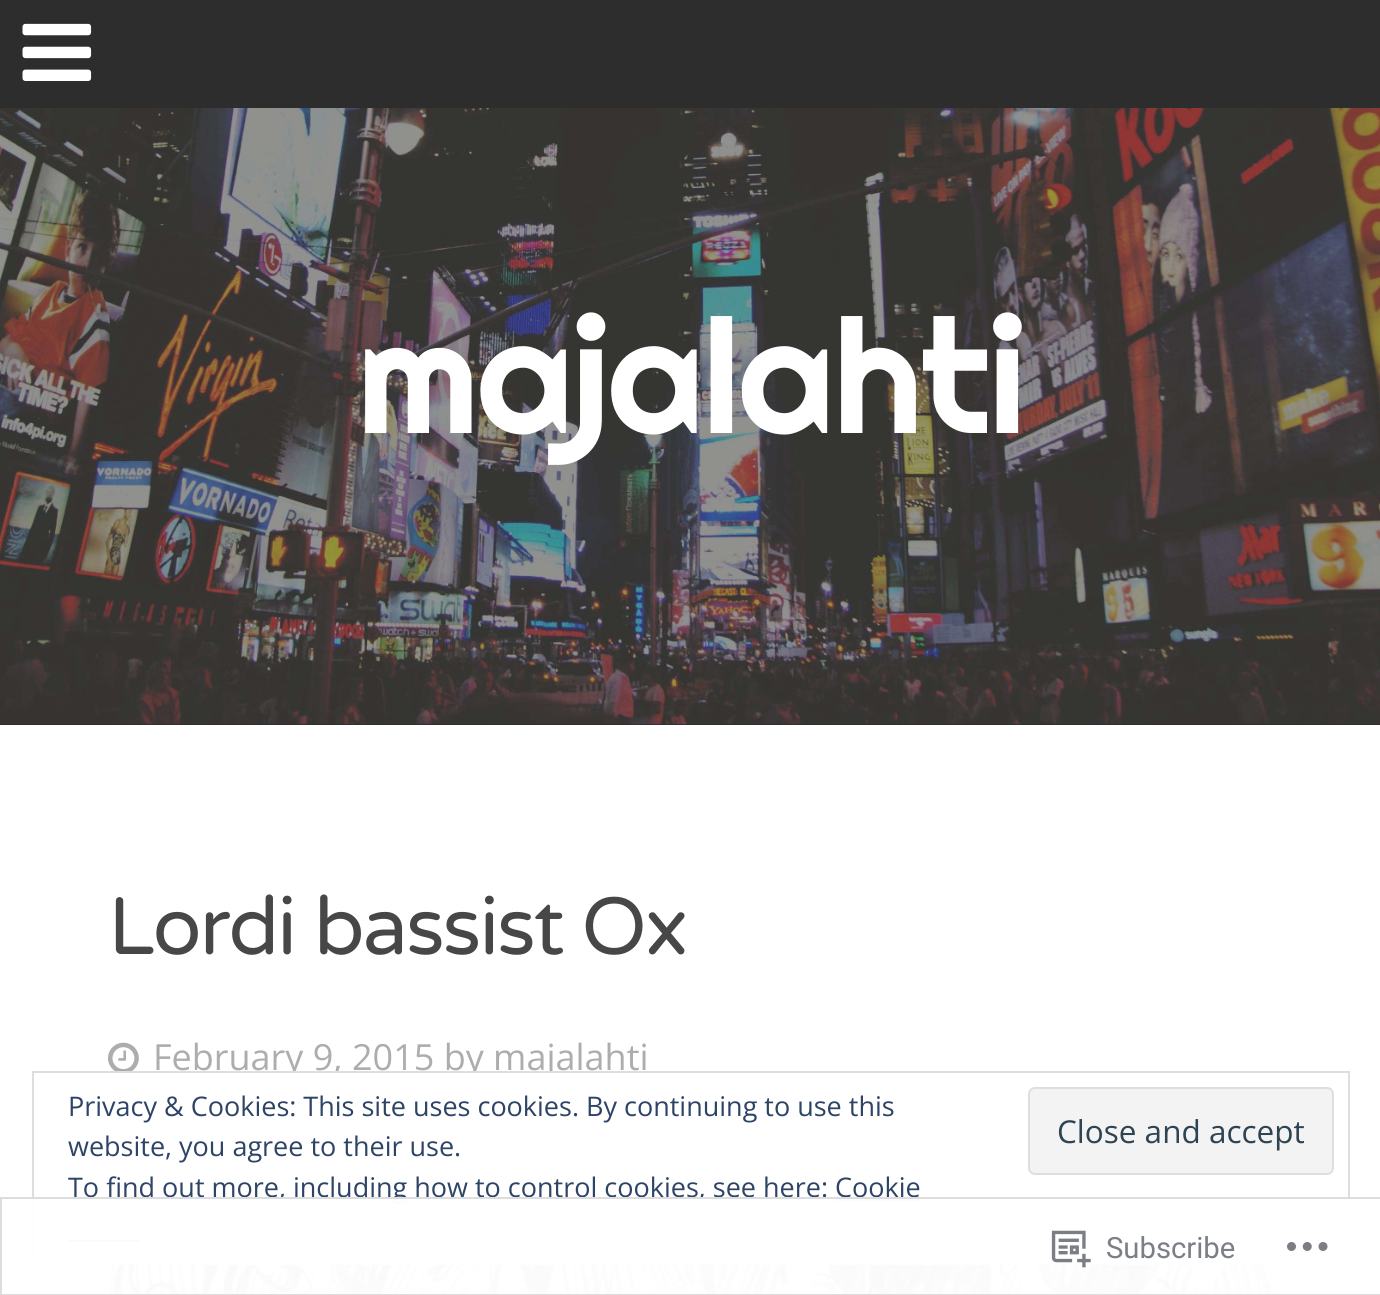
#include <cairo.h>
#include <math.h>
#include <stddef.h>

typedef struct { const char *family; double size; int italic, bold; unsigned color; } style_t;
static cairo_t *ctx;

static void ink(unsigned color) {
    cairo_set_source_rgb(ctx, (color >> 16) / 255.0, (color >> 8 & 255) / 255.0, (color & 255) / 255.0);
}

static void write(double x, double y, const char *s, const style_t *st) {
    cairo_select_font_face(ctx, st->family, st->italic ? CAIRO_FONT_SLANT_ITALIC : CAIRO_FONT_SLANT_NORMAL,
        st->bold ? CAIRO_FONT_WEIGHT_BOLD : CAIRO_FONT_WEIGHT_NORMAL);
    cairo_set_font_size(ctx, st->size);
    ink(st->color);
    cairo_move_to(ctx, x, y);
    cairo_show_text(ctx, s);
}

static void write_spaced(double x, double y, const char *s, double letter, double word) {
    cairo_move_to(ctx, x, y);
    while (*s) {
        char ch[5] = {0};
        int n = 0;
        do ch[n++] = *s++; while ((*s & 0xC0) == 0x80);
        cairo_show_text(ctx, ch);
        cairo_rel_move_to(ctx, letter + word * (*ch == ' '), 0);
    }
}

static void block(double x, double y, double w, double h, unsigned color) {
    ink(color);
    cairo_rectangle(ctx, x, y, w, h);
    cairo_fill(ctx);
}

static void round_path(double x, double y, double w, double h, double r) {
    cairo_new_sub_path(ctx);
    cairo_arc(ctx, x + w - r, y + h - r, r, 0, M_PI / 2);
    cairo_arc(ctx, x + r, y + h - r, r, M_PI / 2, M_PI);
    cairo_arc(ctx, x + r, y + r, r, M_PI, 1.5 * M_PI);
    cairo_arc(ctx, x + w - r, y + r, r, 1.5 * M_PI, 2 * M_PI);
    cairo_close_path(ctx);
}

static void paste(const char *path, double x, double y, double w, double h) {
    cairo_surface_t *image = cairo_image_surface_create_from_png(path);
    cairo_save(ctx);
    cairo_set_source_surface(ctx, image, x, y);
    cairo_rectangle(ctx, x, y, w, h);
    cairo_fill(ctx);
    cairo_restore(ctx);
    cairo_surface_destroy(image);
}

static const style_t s1 = {"Open Sans", 36, 0, 0, 0xadadad};
static const style_t s2 = {"Open Sans", 27, 0, 0, 0x2e4467};
static const style_t s3 = {"Open Sans", 31.5, 0, 0, 0x2e4453};
static const style_t s4 = {"Roboto", 29.25, 0, 0, 0x7b7f85};

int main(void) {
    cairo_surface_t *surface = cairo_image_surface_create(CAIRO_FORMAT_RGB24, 1380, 1295);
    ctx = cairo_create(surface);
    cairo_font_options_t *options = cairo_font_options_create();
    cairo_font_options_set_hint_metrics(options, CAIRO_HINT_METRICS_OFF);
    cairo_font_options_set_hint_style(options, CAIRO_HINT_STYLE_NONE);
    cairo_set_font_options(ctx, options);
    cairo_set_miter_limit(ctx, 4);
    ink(0x2d2d2d);
    cairo_paint(ctx);
    paste("pic1.png", 22, 23, 70, 58);
    paste("pic2.png", 0, 108, 1380, 617);
    cairo_select_font_face(ctx, "Righteous", CAIRO_FONT_SLANT_NORMAL, CAIRO_FONT_WEIGHT_NORMAL);
    cairo_set_font_size(ctx, 160);
    ink(0xffffff);
    write_spaced(357, 433, "majalahti", -2.25, 0);
    block(0, 725, 1380, 570, 0xffffff);
    cairo_select_font_face(ctx, "Varela Round", CAIRO_FONT_SLANT_NORMAL, CAIRO_FONT_WEIGHT_NORMAL);
    cairo_set_font_size(ctx, 81);
    ink(0x474747);
    write_spaced(108, 954, "Lordi bassist Ox", -2.25, 0);
    paste("pic3.png", 108, 1042, 31, 29);
    write(153, 1070, "February 9, 2015 by majalahti", &s1);
    paste("pic4.png", 108, 1265, 1166, 30);
    block(285, 1073, 268, 6, 0xffffff);
    cairo_rectangle(ctx, 33, 1072, 1316, 192);
    ink(0xdedede);
    cairo_stroke(ctx);
    write(68, 1116, "Privacy & Cookies: This site uses cookies. By continuing to use this", &s2);
    write(68, 1156, "website, you agree to their use.", &s2);
    ink(0xf3f3f3);
    round_path(1029, 1088, 304, 86, 6);
    cairo_fill_preserve(ctx);
    ink(0xdedede);
    cairo_stroke(ctx);
    write(1057, 1143, "Close and accept", &s3);
    write(68, 1197, "To find out more, including how to control cookies, see here: Cookie", &s2);
    block(835, 1199, 85, 2, 0x2e4467);
    block(68, 1240, 72, 2, 0x2e4467);
    cairo_set_source_rgba(ctx, 1, 1, 1, 0.98);
    cairo_rectangle(ctx, 32, 1197, 1318, 98);
    cairo_fill(ctx);
    cairo_rectangle(ctx, 1, 1198, 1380, 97);
    cairo_set_source_rgba(ctx, 0.863, 0.863, 0.871, 0.98);
    cairo_stroke(ctx);
    paste("pic5.png", 1051, 1230, 40, 38);
    write(1106, 1258, "Subscribe", &s4);
    paste("pic6.png", 1287, 1242, 41, 9);
    cairo_surface_write_to_png(surface, "screenshot.png");
    cairo_font_options_destroy(options);
    cairo_destroy(ctx);
    cairo_surface_destroy(surface);
    return 0;
}
